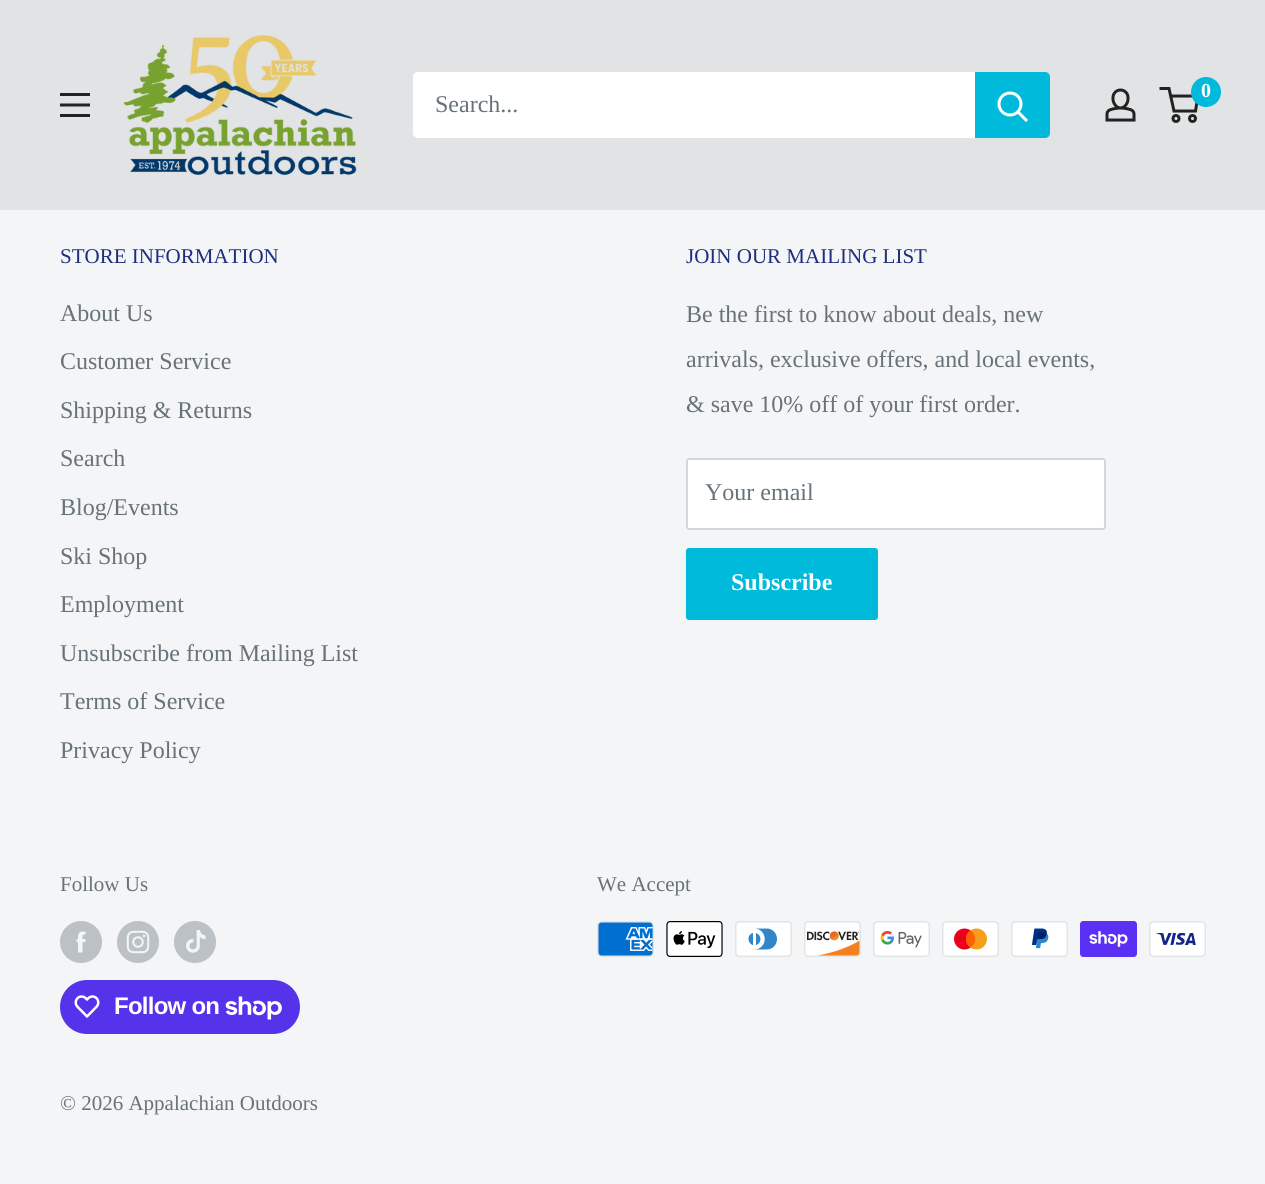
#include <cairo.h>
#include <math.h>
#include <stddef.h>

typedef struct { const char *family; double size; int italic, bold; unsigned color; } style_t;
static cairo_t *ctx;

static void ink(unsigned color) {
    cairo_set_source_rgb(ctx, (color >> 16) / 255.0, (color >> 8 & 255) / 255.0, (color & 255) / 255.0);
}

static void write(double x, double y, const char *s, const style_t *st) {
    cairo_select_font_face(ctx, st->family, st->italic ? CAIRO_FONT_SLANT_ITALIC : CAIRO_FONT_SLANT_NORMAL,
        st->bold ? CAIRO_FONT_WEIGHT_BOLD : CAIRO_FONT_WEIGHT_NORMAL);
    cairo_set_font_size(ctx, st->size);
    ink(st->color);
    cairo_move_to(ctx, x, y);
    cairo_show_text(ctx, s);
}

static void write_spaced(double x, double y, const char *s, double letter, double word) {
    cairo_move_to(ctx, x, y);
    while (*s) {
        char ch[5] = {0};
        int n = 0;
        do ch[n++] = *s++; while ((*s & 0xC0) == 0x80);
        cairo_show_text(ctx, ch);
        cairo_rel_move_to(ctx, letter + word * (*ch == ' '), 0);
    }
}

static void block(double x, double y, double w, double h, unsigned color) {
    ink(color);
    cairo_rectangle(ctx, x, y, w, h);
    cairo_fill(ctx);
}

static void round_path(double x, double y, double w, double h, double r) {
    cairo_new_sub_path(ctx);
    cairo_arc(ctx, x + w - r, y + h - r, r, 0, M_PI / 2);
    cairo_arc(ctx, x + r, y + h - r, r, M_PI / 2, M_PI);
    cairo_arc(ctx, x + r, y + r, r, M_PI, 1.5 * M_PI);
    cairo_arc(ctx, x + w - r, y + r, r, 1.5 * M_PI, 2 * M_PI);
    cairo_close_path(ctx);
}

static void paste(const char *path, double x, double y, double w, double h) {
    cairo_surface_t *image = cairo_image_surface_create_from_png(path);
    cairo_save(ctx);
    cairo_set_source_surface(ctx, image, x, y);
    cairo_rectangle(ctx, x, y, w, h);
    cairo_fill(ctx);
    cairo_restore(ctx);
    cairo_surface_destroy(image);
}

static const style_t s1 = {"Liberation Serif", 20, 0, 1, 0xffffff};
static const style_t s2 = {"Liberation Serif", 24, 0, 0, 0x677279};
static const style_t s3 = {"Liberation Serif", 21, 0, 0, 0x1e2d7d};
static const style_t s4 = {"Liberation Serif", 24, 0, 1, 0xffffff};
static const style_t s5 = {"Liberation Serif", 21, 0, 0, 0x677279};

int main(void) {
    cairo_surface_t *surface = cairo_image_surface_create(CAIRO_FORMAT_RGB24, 1265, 1184);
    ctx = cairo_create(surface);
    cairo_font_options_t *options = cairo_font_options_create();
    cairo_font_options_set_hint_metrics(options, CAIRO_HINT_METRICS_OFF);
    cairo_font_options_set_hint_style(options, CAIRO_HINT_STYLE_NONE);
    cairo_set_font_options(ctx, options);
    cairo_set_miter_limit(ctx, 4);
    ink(0xf3f5f6);
    cairo_paint(ctx);
    block(0, 0, 1265, 210, 0xe1e3e4);
    paste("pic1.png", 123, 35, 234, 140);
    paste("pic2.png", 1105, 88, 31, 34);
    cairo_arc(ctx, 1176, 118.5, 3, 0, 2 * M_PI);
    ink(0x222222);
    cairo_set_line_width(ctx, 3);
    cairo_stroke(ctx);
    cairo_arc(ctx, 1192.5, 118.5, 3, 0, 2 * M_PI);
    cairo_stroke(ctx);
    cairo_new_path(ctx);
    cairo_move_to(ctx, 1170.5, 96);
    cairo_line_to(ctx, 1198, 96);
    cairo_line_to(ctx, 1195.5, 111);
    cairo_line_to(ctx, 1174, 111);
    cairo_line_to(ctx, 1169, 88.5);
    cairo_line_to(ctx, 1159.5, 88.5);
    cairo_stroke(ctx);
    ink(0x00badb);
    cairo_arc(ctx, 1206, 92, 15, 0, 2 * M_PI);
    cairo_fill(ctx);
    write(1201, 97, "0", &s1);
    paste("pic3.png", 60, 93, 30, 24);
    round_path(413, 72, 637, 66, 5);
    cairo_fill(ctx);
    write(435, 112, "Search...", &s2);
    ink(0x00badb);
    cairo_new_path(ctx);
    cairo_move_to(ctx, 975, 72);
    cairo_line_to(ctx, 1045, 72);
    cairo_curve_to(ctx, 1048, 72, 1050, 74, 1050, 77);
    cairo_line_to(ctx, 1050, 133);
    cairo_curve_to(ctx, 1050, 136, 1048, 138, 1045, 138);
    cairo_line_to(ctx, 975, 138);
    cairo_close_path(ctx);
    cairo_fill(ctx);
    cairo_new_path(ctx);
    cairo_move_to(ctx, 1026, 120);
    cairo_line_to(ctx, 1018.5, 112.5);
    ink(0xffffff);
    cairo_set_line_cap(ctx, CAIRO_LINE_CAP_SQUARE);
    cairo_stroke(ctx);
    cairo_arc(ctx, 1010, 104, 11, 0, 2 * M_PI);
    cairo_set_line_cap(ctx, CAIRO_LINE_CAP_BUTT);
    cairo_stroke(ctx);
    write(60, 263, "STORE INFORMATION", &s3);
    write(60, 321, "About Us", &s2);
    write(60, 369, "Customer Service", &s2);
    write(60, 418, "Shipping & Returns", &s2);
    write(60, 466, "Search", &s2);
    write(60, 515, "Blog/Events", &s2);
    write(60, 564, "Ski Shop", &s2);
    write(60, 612, "Employment", &s2);
    write(60, 661, "Unsubscribe from Mailing List", &s2);
    write(60, 709, "Terms of Service", &s2);
    write(60, 758, "Privacy Policy", &s2);
    write(686, 263, "JOIN OUR MAILING LIST", &s3);
    write(686, 322, "Be the first to know about deals, new", &s2);
    write(686, 367, "arrivals, exclusive offers, and local events,", &s2);
    write(686, 412, "& save 10% off of your first order.", &s2);
    ink(0xffffff);
    round_path(686, 458, 420, 72, 3);
    cairo_fill(ctx);
    ink(0xf8f8f8);
    cairo_new_path(ctx);
    cairo_move_to(ctx, 688, 460);
    cairo_line_to(ctx, 1102, 460);
    cairo_curve_to(ctx, 1103, 460, 1104, 461, 1104, 462);
    cairo_curve_to(ctx, 1104, 461, 1104, 459, 1102, 459);
    cairo_line_to(ctx, 688, 459);
    cairo_line_to(ctx, 687, 460);
    cairo_line_to(ctx, 687, 462);
    cairo_close_path(ctx);
    cairo_fill(ctx);
    round_path(687, 459, 418, 70, 2);
    ink(0xd4d6d8);
    cairo_set_line_width(ctx, 2);
    cairo_stroke(ctx);
    write(705, 500, "Your email", &s2);
    ink(0x00badb);
    round_path(686, 548, 192, 72, 3);
    cairo_fill(ctx);
    write(731, 590, "Subscribe", &s4);
    write(60, 891, "Follow Us", &s5);
    paste("pic4.png", 60, 921, 42, 42);
    paste("pic5.png", 117, 921, 42, 42);
    paste("pic6.png", 174, 921, 42, 42);
    ink(0x5433eb);
    round_path(60, 980, 240, 54, 27);
    cairo_fill(ctx);
    paste("pic7.png", 74, 995, 26, 23);
    cairo_select_font_face(ctx, "Liberation Sans", CAIRO_FONT_SLANT_NORMAL, CAIRO_FONT_WEIGHT_BOLD);
    cairo_set_font_size(ctx, 24);
    ink(0xffffff);
    write_spaced(114, 1014, "Follow on", -0.75, 0);
    paste("pic8.png", 225, 996, 57, 24);
    write(597, 891, "We Accept", &s5);
    paste("pic9.png", 597, 921, 57, 36);
    paste("pic10.png", 666, 921, 57, 36);
    paste("pic11.png", 735, 921, 57, 36);
    paste("pic12.png", 804, 921, 57, 36);
    paste("pic13.png", 873, 921, 57, 36);
    paste("pic14.png", 942, 921, 57, 36);
    paste("pic15.png", 1011, 921, 57, 36);
    paste("pic16.png", 1080, 921, 57, 36);
    paste("pic17.png", 1149, 921, 57, 36);
    write(60, 1110, "© 2026 Appalachian Outdoors", &s5);
    cairo_surface_write_to_png(surface, "screenshot.png");
    cairo_font_options_destroy(options);
    cairo_destroy(ctx);
    cairo_surface_destroy(surface);
    return 0;
}
